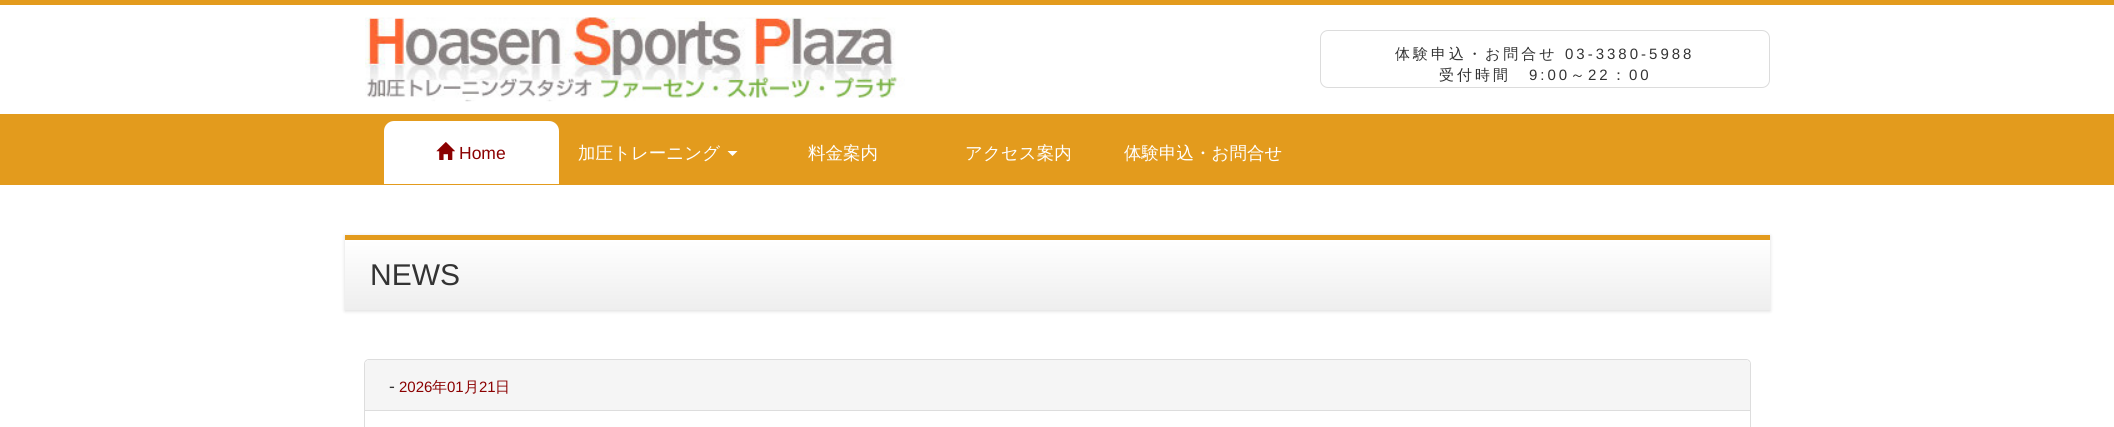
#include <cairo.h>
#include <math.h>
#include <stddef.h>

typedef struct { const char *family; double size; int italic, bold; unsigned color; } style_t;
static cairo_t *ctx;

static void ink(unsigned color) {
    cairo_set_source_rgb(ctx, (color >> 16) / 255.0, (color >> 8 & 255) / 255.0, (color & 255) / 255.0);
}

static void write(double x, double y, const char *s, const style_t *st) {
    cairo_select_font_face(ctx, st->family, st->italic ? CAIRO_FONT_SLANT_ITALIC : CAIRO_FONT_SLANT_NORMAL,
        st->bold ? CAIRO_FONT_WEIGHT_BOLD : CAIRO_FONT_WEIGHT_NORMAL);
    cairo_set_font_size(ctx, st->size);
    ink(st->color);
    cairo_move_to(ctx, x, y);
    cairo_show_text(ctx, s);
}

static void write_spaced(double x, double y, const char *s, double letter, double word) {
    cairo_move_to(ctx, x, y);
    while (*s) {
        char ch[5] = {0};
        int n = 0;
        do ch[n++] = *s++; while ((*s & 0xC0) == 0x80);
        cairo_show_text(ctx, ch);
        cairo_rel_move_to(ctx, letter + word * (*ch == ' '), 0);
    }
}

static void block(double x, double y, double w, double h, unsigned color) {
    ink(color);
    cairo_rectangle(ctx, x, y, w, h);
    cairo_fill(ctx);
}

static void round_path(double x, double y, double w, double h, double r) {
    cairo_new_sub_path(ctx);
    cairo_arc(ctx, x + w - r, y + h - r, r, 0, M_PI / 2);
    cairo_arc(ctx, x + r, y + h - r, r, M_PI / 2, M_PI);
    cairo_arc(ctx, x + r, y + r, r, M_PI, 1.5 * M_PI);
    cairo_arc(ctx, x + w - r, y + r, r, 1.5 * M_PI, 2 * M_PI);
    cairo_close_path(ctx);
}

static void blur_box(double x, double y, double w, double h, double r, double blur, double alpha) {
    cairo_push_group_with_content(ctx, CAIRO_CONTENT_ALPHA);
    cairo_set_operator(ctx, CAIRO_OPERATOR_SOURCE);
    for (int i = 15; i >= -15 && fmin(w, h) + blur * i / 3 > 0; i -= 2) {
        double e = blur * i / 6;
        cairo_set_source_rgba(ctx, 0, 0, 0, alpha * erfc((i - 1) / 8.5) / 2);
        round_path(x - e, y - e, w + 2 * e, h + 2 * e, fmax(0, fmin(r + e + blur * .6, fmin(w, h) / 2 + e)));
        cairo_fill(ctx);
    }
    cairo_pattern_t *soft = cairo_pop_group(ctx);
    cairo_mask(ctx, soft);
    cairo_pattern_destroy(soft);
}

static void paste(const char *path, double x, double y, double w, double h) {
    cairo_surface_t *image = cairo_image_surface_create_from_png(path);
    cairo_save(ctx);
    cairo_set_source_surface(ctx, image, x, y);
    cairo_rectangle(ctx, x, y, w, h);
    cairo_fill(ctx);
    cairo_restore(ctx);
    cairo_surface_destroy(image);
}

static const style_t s1 = {"Liberation Sans", 17.5, 0, 0, 0x8b0000};
static const style_t s2 = {"WenQuanYi Zen Hei Medium", 17.5, 0, 0, 0xffffff};
static const style_t s3 = {"Liberation Sans", 30, 0, 0, 0x333333};
static const style_t s4 = {"Liberation Sans", 17.5, 0, 0, 0x333333};
static const style_t s5 = {"Liberation Sans", 15, 0, 0, 0x8b0000};
static const style_t s6 = {"WenQuanYi Zen Hei Medium", 15, 0, 0, 0x8b0000};

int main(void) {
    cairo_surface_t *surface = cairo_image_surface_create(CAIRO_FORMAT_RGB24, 2114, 427);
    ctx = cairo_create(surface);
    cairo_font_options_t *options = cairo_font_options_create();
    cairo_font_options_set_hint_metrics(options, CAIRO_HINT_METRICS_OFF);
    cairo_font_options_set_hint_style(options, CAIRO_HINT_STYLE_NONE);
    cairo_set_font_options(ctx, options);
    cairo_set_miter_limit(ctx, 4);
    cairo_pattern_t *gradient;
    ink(0xffffff);
    cairo_paint(ctx);
    block(0, 0, 2114, 5, 0xe39b1d);
    paste("pic1.png", 365, 17, 540, 85);
    round_path(1320.5, 30.5, 449, 57, 7.5);
    ink(0xdcdcdc);
    cairo_set_line_width(ctx, 1);
    cairo_stroke(ctx);
    cairo_select_font_face(ctx, "WenQuanYi Zen Hei Medium", CAIRO_FONT_SLANT_NORMAL, CAIRO_FONT_WEIGHT_NORMAL);
    cairo_set_font_size(ctx, 15);
    ink(0x333333);
    write_spaced(1395, 59, "体験申込・お問合せ", 3, 0);
    cairo_select_font_face(ctx, "Liberation Sans", CAIRO_FONT_SLANT_NORMAL, CAIRO_FONT_WEIGHT_NORMAL);
    write_spaced(1565, 59, "03-3380-5988", 3, 0);
    cairo_select_font_face(ctx, "WenQuanYi Zen Hei Medium", CAIRO_FONT_SLANT_NORMAL, CAIRO_FONT_WEIGHT_NORMAL);
    write_spaced(1439, 80, "受付時間", 3, 0);
    cairo_select_font_face(ctx, "Liberation Sans", CAIRO_FONT_SLANT_NORMAL, CAIRO_FONT_WEIGHT_NORMAL);
    write_spaced(1529, 80, "9:00", 3, 0);
    cairo_select_font_face(ctx, "WenQuanYi Zen Hei Medium", CAIRO_FONT_SLANT_NORMAL, CAIRO_FONT_WEIGHT_NORMAL);
    write_spaced(1570, 80, "～", 3, 0);
    cairo_select_font_face(ctx, "Liberation Sans", CAIRO_FONT_SLANT_NORMAL, CAIRO_FONT_WEIGHT_NORMAL);
    write_spaced(1588, 80, "22", 3, 0);
    cairo_select_font_face(ctx, "WenQuanYi Zen Hei Medium", CAIRO_FONT_SLANT_NORMAL, CAIRO_FONT_WEIGHT_NORMAL);
    write_spaced(1611, 80, "：", 3, 0);
    cairo_select_font_face(ctx, "Liberation Sans", CAIRO_FONT_SLANT_NORMAL, CAIRO_FONT_WEIGHT_NORMAL);
    write_spaced(1629, 80, "00", 3, 0);
    block(0, 114, 2114, 71, 0xe39b1d);
    ink(0xffffff);
    cairo_new_path(ctx);
    cairo_move_to(ctx, 394, 121);
    cairo_line_to(ctx, 549, 121);
    cairo_curve_to(ctx, 554.5, 121, 559, 125.5, 559, 131);
    cairo_line_to(ctx, 559, 184);
    cairo_line_to(ctx, 384, 184);
    cairo_line_to(ctx, 384, 131);
    cairo_curve_to(ctx, 384, 125.5, 388.5, 121, 394, 121);
    cairo_close_path(ctx);
    cairo_fill(ctx);
    paste("pic2.png", 436, 142, 19, 18);
    write(459, 159, "Home", &s1);
    write(578, 159, "加圧トレーニング", &s2);
    cairo_new_path(ctx);
    cairo_move_to(ctx, 727.5, 151);
    cairo_line_to(ctx, 737.5, 151);
    cairo_line_to(ctx, 732.5, 156);
    cairo_close_path(ctx);
    cairo_fill(ctx);
    write(808, 159, "料金案内", &s2);
    write(965, 159, "アクセス案内", &s2);
    write(1124, 159, "体験申込・お問合せ", &s2);
    ink(0x000000);
    blur_box(345, 236, 1425, 75, 0, 2, 0.15);
    gradient = cairo_pattern_create_linear(1058, 240, 1058, 310);
    cairo_pattern_add_color_stop_rgba(gradient, 0, 1, 1, 1, 1);
    cairo_pattern_add_color_stop_rgba(gradient, 1, 0.933, 0.933, 0.933, 1);
    cairo_set_source(ctx, gradient);
    cairo_pattern_destroy(gradient);
    cairo_rectangle(ctx, 345, 240, 1425, 70);
    cairo_fill(ctx);
    block(345, 235, 1425, 5, 0xe39b1d);
    write(370, 285, "NEWS", &s3);
    round_path(364.5, 359.5, 1386, 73, 4.5);
    ink(0xdddddd);
    cairo_stroke(ctx);
    ink(0xf5f5f5);
    cairo_new_path(ctx);
    cairo_move_to(ctx, 369, 360);
    cairo_line_to(ctx, 1746, 360);
    cairo_curve_to(ctx, 1748, 360, 1750, 362, 1750, 364);
    cairo_line_to(ctx, 1750, 411);
    cairo_line_to(ctx, 365, 411);
    cairo_line_to(ctx, 365, 364);
    cairo_curve_to(ctx, 365, 362, 367, 360, 369, 360);
    cairo_close_path(ctx);
    cairo_fill(ctx);
    block(365, 410, 1385, 1, 0xdddddd);
    write(389, 392, "-", &s4);
    write(399, 392, "2026", &s5);
    write(432, 392, "年", &s6);
    write(447, 392, "01", &s5);
    write(464, 392, "月", &s6);
    write(479, 392, "21", &s5);
    write(495, 392, "日", &s6);
    cairo_surface_write_to_png(surface, "screenshot.png");
    cairo_font_options_destroy(options);
    cairo_destroy(ctx);
    cairo_surface_destroy(surface);
    return 0;
}
